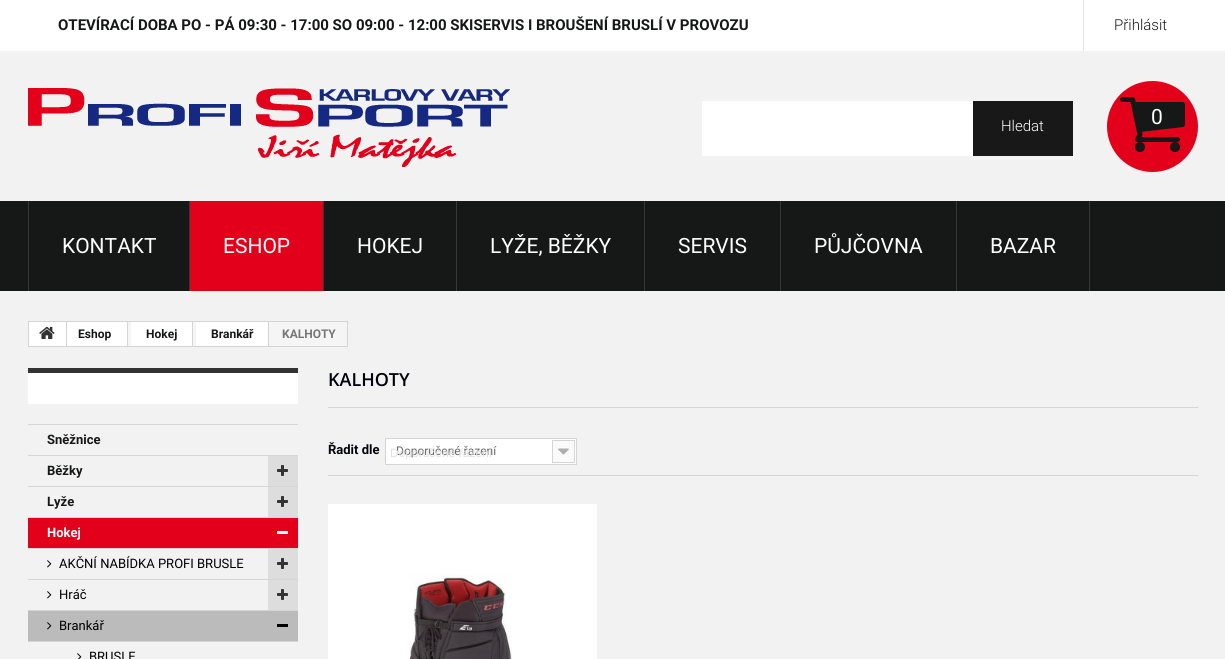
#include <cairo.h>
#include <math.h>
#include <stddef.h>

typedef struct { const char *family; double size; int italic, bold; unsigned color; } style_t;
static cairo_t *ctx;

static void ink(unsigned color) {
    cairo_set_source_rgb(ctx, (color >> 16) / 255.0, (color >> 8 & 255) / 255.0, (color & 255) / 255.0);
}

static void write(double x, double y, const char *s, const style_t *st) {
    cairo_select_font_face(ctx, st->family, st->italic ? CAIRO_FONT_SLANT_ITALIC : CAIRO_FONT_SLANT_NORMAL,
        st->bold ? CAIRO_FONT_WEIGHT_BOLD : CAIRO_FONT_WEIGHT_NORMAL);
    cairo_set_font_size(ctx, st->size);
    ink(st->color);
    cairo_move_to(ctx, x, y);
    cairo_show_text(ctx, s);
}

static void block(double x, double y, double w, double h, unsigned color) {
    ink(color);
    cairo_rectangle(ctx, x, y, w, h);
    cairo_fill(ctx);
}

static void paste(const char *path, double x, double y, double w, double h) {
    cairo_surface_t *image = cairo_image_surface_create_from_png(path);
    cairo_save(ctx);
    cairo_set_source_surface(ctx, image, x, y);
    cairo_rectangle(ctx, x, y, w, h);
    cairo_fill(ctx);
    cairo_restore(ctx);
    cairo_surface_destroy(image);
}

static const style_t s1 = {"Roboto", 15, 0, 1, 0x161717};
static const style_t s2 = {"Roboto Light", 15, 0, 0, 0x161717};
static const style_t s3 = {"Roboto Light", 15, 0, 0, 0xffffff};
static const style_t s4 = {"Roboto", 21, 0, 0, 0xffffff};
static const style_t s5 = {"Roboto", 12, 0, 1, 0x161717};
static const style_t s6 = {"Roboto", 12, 0, 1, 0x777777};
static const style_t s7 = {"Open Sans SemiBold", 18, 0, 0, 0x01020b};
static const style_t s8 = {"Roboto", 13, 0, 1, 0x01020b};
static const style_t s9 = {"Roboto", 12, 0, 0, 0x666666};
static const style_t s10 = {"Liberation Sans", 12, 0, 0, 0xe0e0e0};
static const style_t s11 = {"Roboto", 13, 0, 1, 0x161717};
static const style_t s12 = {"Roboto", 13, 0, 1, 0xffffff};
static const style_t s13 = {"Roboto", 13, 0, 0, 0x000000};

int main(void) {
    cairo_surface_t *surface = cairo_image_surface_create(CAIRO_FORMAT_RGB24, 1225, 659);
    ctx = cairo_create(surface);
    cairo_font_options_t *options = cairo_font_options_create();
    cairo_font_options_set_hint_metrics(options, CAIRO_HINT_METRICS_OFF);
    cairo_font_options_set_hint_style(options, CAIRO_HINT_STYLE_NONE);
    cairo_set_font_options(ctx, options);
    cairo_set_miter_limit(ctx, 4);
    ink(0xf2f2f2);
    cairo_paint(ctx);
    block(0, 0, 1225, 51, 0xffffff);
    write(58, 30, "OTEVÍRACÍ DOBA PO - PÁ 09:30 - 17:00 SO 09:00 - 12:00 SKISERVIS I BROUŠENÍ BRUSLÍ V PROVOZU", &s1);
    block(1083, 0, 1, 51, 0xe5e5e5);
    write(1114, 30, "Přihlásit", &s2);
    paste("pic1.png", 28, 88, 482, 79);
    block(702, 101, 271, 55, 0xffffff);
    block(973, 101, 100, 55, 0x181818);
    write(1001, 131, "Hledat", &s3);
    ink(0xe2001a);
    cairo_new_path(ctx);
    cairo_arc(ctx, 1152.5, 126.5, 45.5, 0, 2 * M_PI);
    cairo_fill(ctx);
    paste("pic2.png", 1120, 97, 65, 55);
    write(1151, 124, "0", &s4);
    block(0, 201, 1225, 90, 0x161717);
    block(189, 201, 1, 90, 0x353838);
    block(28, 201, 1, 90, 0x353838);
    write(62, 253, "KONTAKT", &s4);
    block(323, 201, 1, 90, 0x353838);
    block(190, 201, 133, 90, 0xe2001a);
    write(223, 253, "ESHOP", &s4);
    block(456, 201, 1, 90, 0x353838);
    write(357, 253, "HOKEJ", &s4);
    block(644, 201, 1, 90, 0x353838);
    write(490, 253, "LYŽE, BĚŽKY", &s4);
    block(780, 201, 1, 90, 0x353838);
    write(678, 253, "SERVIS", &s4);
    block(956, 201, 1, 90, 0x353838);
    write(814, 253, "PŮJČOVNA", &s4);
    block(1089, 201, 1, 90, 0x353838);
    write(990, 253, "BAZAR", &s4);
    block(128, 322, 219, 24, 0xf5f5f5);
    cairo_rectangle(ctx, 28.5, 321.5, 319, 25);
    ink(0xd6d4d4);
    cairo_set_line_width(ctx, 1);
    cairo_stroke(ctx);
    block(29, 322, 37, 24, 0xffffff);
    block(66, 322, 1, 24, 0xd6d4d4);
    paste("pic3.png", 39, 326, 16, 13);
    block(67, 322, 60, 24, 0xffffff);
    block(127, 322, 1, 24, 0xd6d4d4);
    write(78, 338, "Eshop", &s5);
    block(131, 322, 61, 24, 0xffffff);
    block(192, 322, 1, 24, 0xd6d4d4);
    write(146, 338, "Hokej", &s5);
    block(196, 322, 72, 24, 0xffffff);
    block(268, 322, 1, 24, 0xd6d4d4);
    write(211, 338, "Brankář", &s5);
    write(282, 338, "KALHOTY", &s6);
    block(328, 407, 870, 1, 0xd6d4d4);
    write(328, 386, "KALHOTY", &s7);
    block(328, 475, 870, 1, 0xd6d4d4);
    write(328, 454, "Řadit dle", &s8);
    ink(0xffffff);
    cairo_rectangle(ctx, 385.5, 438.5, 191, 26);
    cairo_fill_preserve(ctx);
    ink(0xd6d4d4);
    cairo_stroke(ctx);
    write(396, 455, "Doporučené řazení", &s9);
    ink(0xfafafa);
    cairo_rectangle(ctx, 552.5, 440.5, 22, 22);
    cairo_fill_preserve(ctx);
    ink(0xd6d4d4);
    cairo_stroke(ctx);
    paste("pic4.png", 558, 448, 11, 7);
    write(390, 457, "Doporučené řazení", &s10);
    block(328, 504, 269, 155, 0xffffff);
    paste("pic5.png", 409, 574, 103, 85);
    block(28, 373, 270, 31, 0xffffff);
    block(28, 368, 270, 5, 0x333333);
    block(28, 424, 270, 1, 0xd6d4d4);
    block(28, 455, 270, 1, 0xd6d4d4);
    write(47, 444, "Sněžnice", &s11);
    block(28, 486, 270, 1, 0xd6d4d4);
    write(47, 475, "Běžky", &s11);
    block(268, 456, 30, 30, 0xdddddd);
    paste("pic6.png", 277, 465, 11, 11);
    block(28, 517, 270, 1, 0xd6d4d4);
    write(47, 506, "Lyže", &s11);
    block(268, 487, 30, 30, 0xdddddd);
    paste("pic6.png", 277, 496, 11, 11);
    block(28, 518, 270, 30, 0xe2001a);
    block(28, 548, 270, 1, 0xd6d4d4);
    write(47, 537, "Hokej", &s12);
    block(277, 531, 11, 3, 0xffffff);
    block(28, 579, 270, 1, 0xd6d4d4);
    paste("pic7.png", 47, 560, 5, 8);
    write(59, 568, "AKČNÍ NABÍDKA PROFI BRUSLE", &s13);
    block(268, 549, 30, 30, 0xdddddd);
    paste("pic6.png", 277, 558, 11, 11);
    block(28, 610, 270, 1, 0xd6d4d4);
    paste("pic7.png", 47, 591, 5, 8);
    write(59, 599, "Hráč", &s13);
    block(268, 580, 30, 30, 0xdddddd);
    paste("pic6.png", 277, 589, 11, 11);
    block(28, 611, 270, 30, 0xbbbbbb);
    block(28, 641, 270, 1, 0xd6d4d4);
    paste("pic8.png", 47, 622, 5, 8);
    write(59, 630, "Brankář", &s13);
    block(277, 624, 11, 3, 0x000000);
    paste("pic9.png", 77, 653, 5, 6);
    write(89, 661, "BRUSLE", &s13);
    cairo_surface_write_to_png(surface, "screenshot.png");
    cairo_font_options_destroy(options);
    cairo_destroy(ctx);
    cairo_surface_destroy(surface);
    return 0;
}
